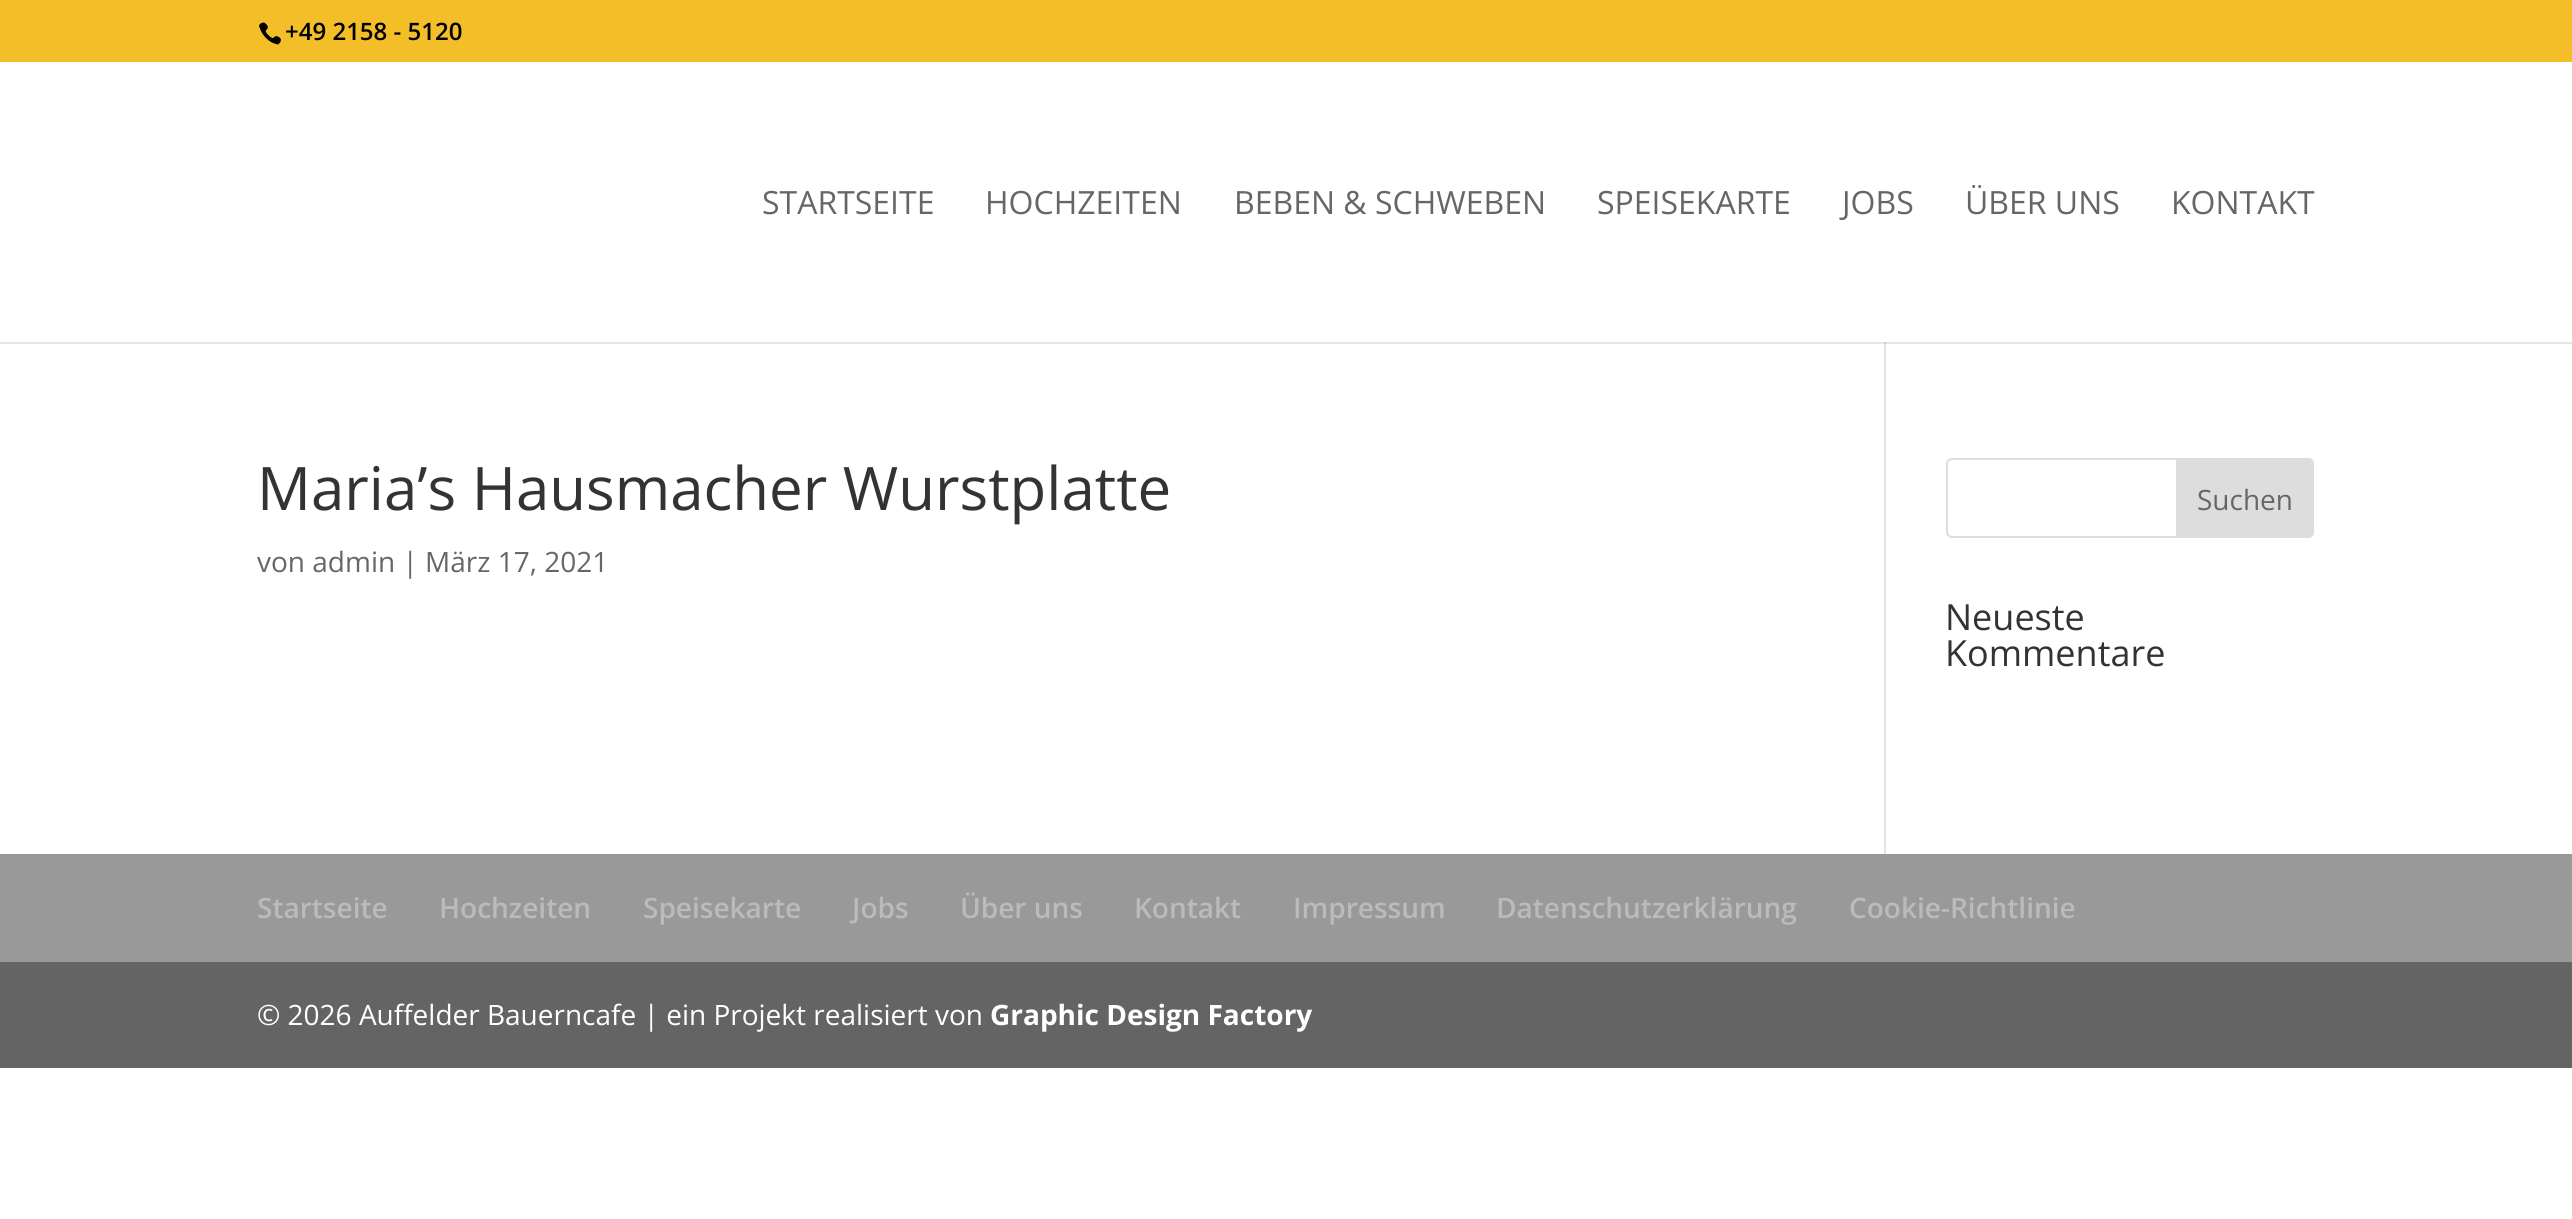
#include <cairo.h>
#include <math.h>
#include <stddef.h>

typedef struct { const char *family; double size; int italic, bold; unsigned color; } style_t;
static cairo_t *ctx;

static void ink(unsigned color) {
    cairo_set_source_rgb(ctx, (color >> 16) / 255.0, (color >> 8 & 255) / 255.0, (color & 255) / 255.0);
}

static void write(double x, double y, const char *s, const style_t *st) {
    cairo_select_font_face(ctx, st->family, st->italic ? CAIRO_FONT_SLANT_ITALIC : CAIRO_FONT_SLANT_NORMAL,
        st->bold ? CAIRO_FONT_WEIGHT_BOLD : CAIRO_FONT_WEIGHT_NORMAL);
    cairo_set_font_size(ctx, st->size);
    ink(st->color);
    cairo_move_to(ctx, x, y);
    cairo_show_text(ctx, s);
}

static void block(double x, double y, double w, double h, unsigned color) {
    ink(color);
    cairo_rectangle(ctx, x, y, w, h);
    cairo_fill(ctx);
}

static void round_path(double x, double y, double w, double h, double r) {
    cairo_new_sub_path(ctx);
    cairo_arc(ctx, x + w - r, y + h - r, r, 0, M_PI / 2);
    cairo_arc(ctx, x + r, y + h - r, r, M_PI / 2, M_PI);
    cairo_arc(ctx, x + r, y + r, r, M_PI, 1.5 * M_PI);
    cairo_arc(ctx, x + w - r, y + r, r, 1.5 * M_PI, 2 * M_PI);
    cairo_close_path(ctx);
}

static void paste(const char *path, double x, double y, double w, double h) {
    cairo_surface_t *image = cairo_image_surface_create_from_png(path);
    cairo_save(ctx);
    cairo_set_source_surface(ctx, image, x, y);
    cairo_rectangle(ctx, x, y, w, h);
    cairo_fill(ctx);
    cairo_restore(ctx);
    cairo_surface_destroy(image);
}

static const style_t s1 = {"Open Sans SemiBold", 24, 0, 0, 0x000000};
static const style_t s2 = {"Open Sans", 32, 0, 0, 0x666666};
static const style_t s3 = {"Open Sans", 60, 0, 0, 0x333333};
static const style_t s4 = {"Open Sans", 28, 0, 0, 0x666666};
static const style_t s5 = {"Open Sans", 36, 0, 0, 0x333333};
static const style_t s6 = {"Open Sans SemiBold", 28, 0, 0, 0xbbbbbb};
static const style_t s7 = {"Open Sans", 28, 0, 0, 0xffffff};
static const style_t s8 = {"Open Sans", 28, 0, 1, 0xffffff};

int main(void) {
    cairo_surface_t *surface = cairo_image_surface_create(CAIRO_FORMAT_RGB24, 2572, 1219);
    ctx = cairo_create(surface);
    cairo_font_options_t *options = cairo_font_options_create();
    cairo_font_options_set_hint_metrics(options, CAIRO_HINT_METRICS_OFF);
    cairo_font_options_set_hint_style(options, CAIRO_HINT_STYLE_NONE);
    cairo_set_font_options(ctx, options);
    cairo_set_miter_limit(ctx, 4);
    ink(0xffffff);
    cairo_paint(ctx);
    block(0, 342, 2572, 2, 0xe6e6e6);
    block(0, 0, 2572, 62, 0xf4be28);
    paste("pic1.png", 259, 22, 22, 23);
    write(285, 40, "+49 2158 - 5120", &s1);
    write(762, 214, "STARTSEITE", &s2);
    write(985, 214, "HOCHZEITEN", &s2);
    write(1234, 214, "BEBEN & SCHWEBEN", &s2);
    write(1597, 214, "SPEISEKARTE", &s2);
    write(1842, 214, "JOBS", &s2);
    write(1965, 214, "ÜBER UNS", &s2);
    write(2171, 214, "KONTAKT", &s2);
    block(1884, 342, 2, 512, 0xe2e2e2);
    block(1884, 342, 2, 2, 0xcbcbcb);
    write(257, 510, "Maria’s Hausmacher Wurstplatte", &s3);
    write(257, 572, "von admin | März 17, 2021", &s4);
    round_path(1947, 459, 366, 78, 5);
    ink(0xdddddd);
    cairo_stroke(ctx);
    cairo_new_path(ctx);
    cairo_move_to(ctx, 2177, 459);
    cairo_line_to(ctx, 2308, 459);
    cairo_curve_to(ctx, 2311, 459, 2313, 461, 2313, 464);
    cairo_line_to(ctx, 2313, 532);
    cairo_curve_to(ctx, 2313, 535, 2311, 537, 2308, 537);
    cairo_line_to(ctx, 2177, 537);
    cairo_close_path(ctx);
    cairo_fill_preserve(ctx);
    cairo_stroke(ctx);
    write(2197, 510, "Suchen", &s4);
    write(1945, 630, "Neueste", &s5);
    write(1945, 666, "Kommentare", &s5);
    block(0, 854, 2572, 108, 0x999999);
    write(257, 918, "Startseite", &s6);
    write(439, 918, "Hochzeiten", &s6);
    write(643, 918, "Speisekarte", &s6);
    write(852, 918, "Jobs", &s6);
    write(960, 918, "Über uns", &s6);
    write(1134, 918, "Kontakt", &s6);
    write(1293, 918, "Impressum", &s6);
    write(1496, 918, "Datenschutzerklärung", &s6);
    write(1849, 918, "Cookie-Richtlinie", &s6);
    block(0, 962, 2572, 106, 0x646464);
    write(257, 1025, "© 2026 Auffelder Bauerncafe | ein Projekt realisiert von", &s7);
    write(990, 1025, "Graphic Design Factory", &s8);
    cairo_surface_write_to_png(surface, "screenshot.png");
    cairo_font_options_destroy(options);
    cairo_destroy(ctx);
    cairo_surface_destroy(surface);
    return 0;
}
